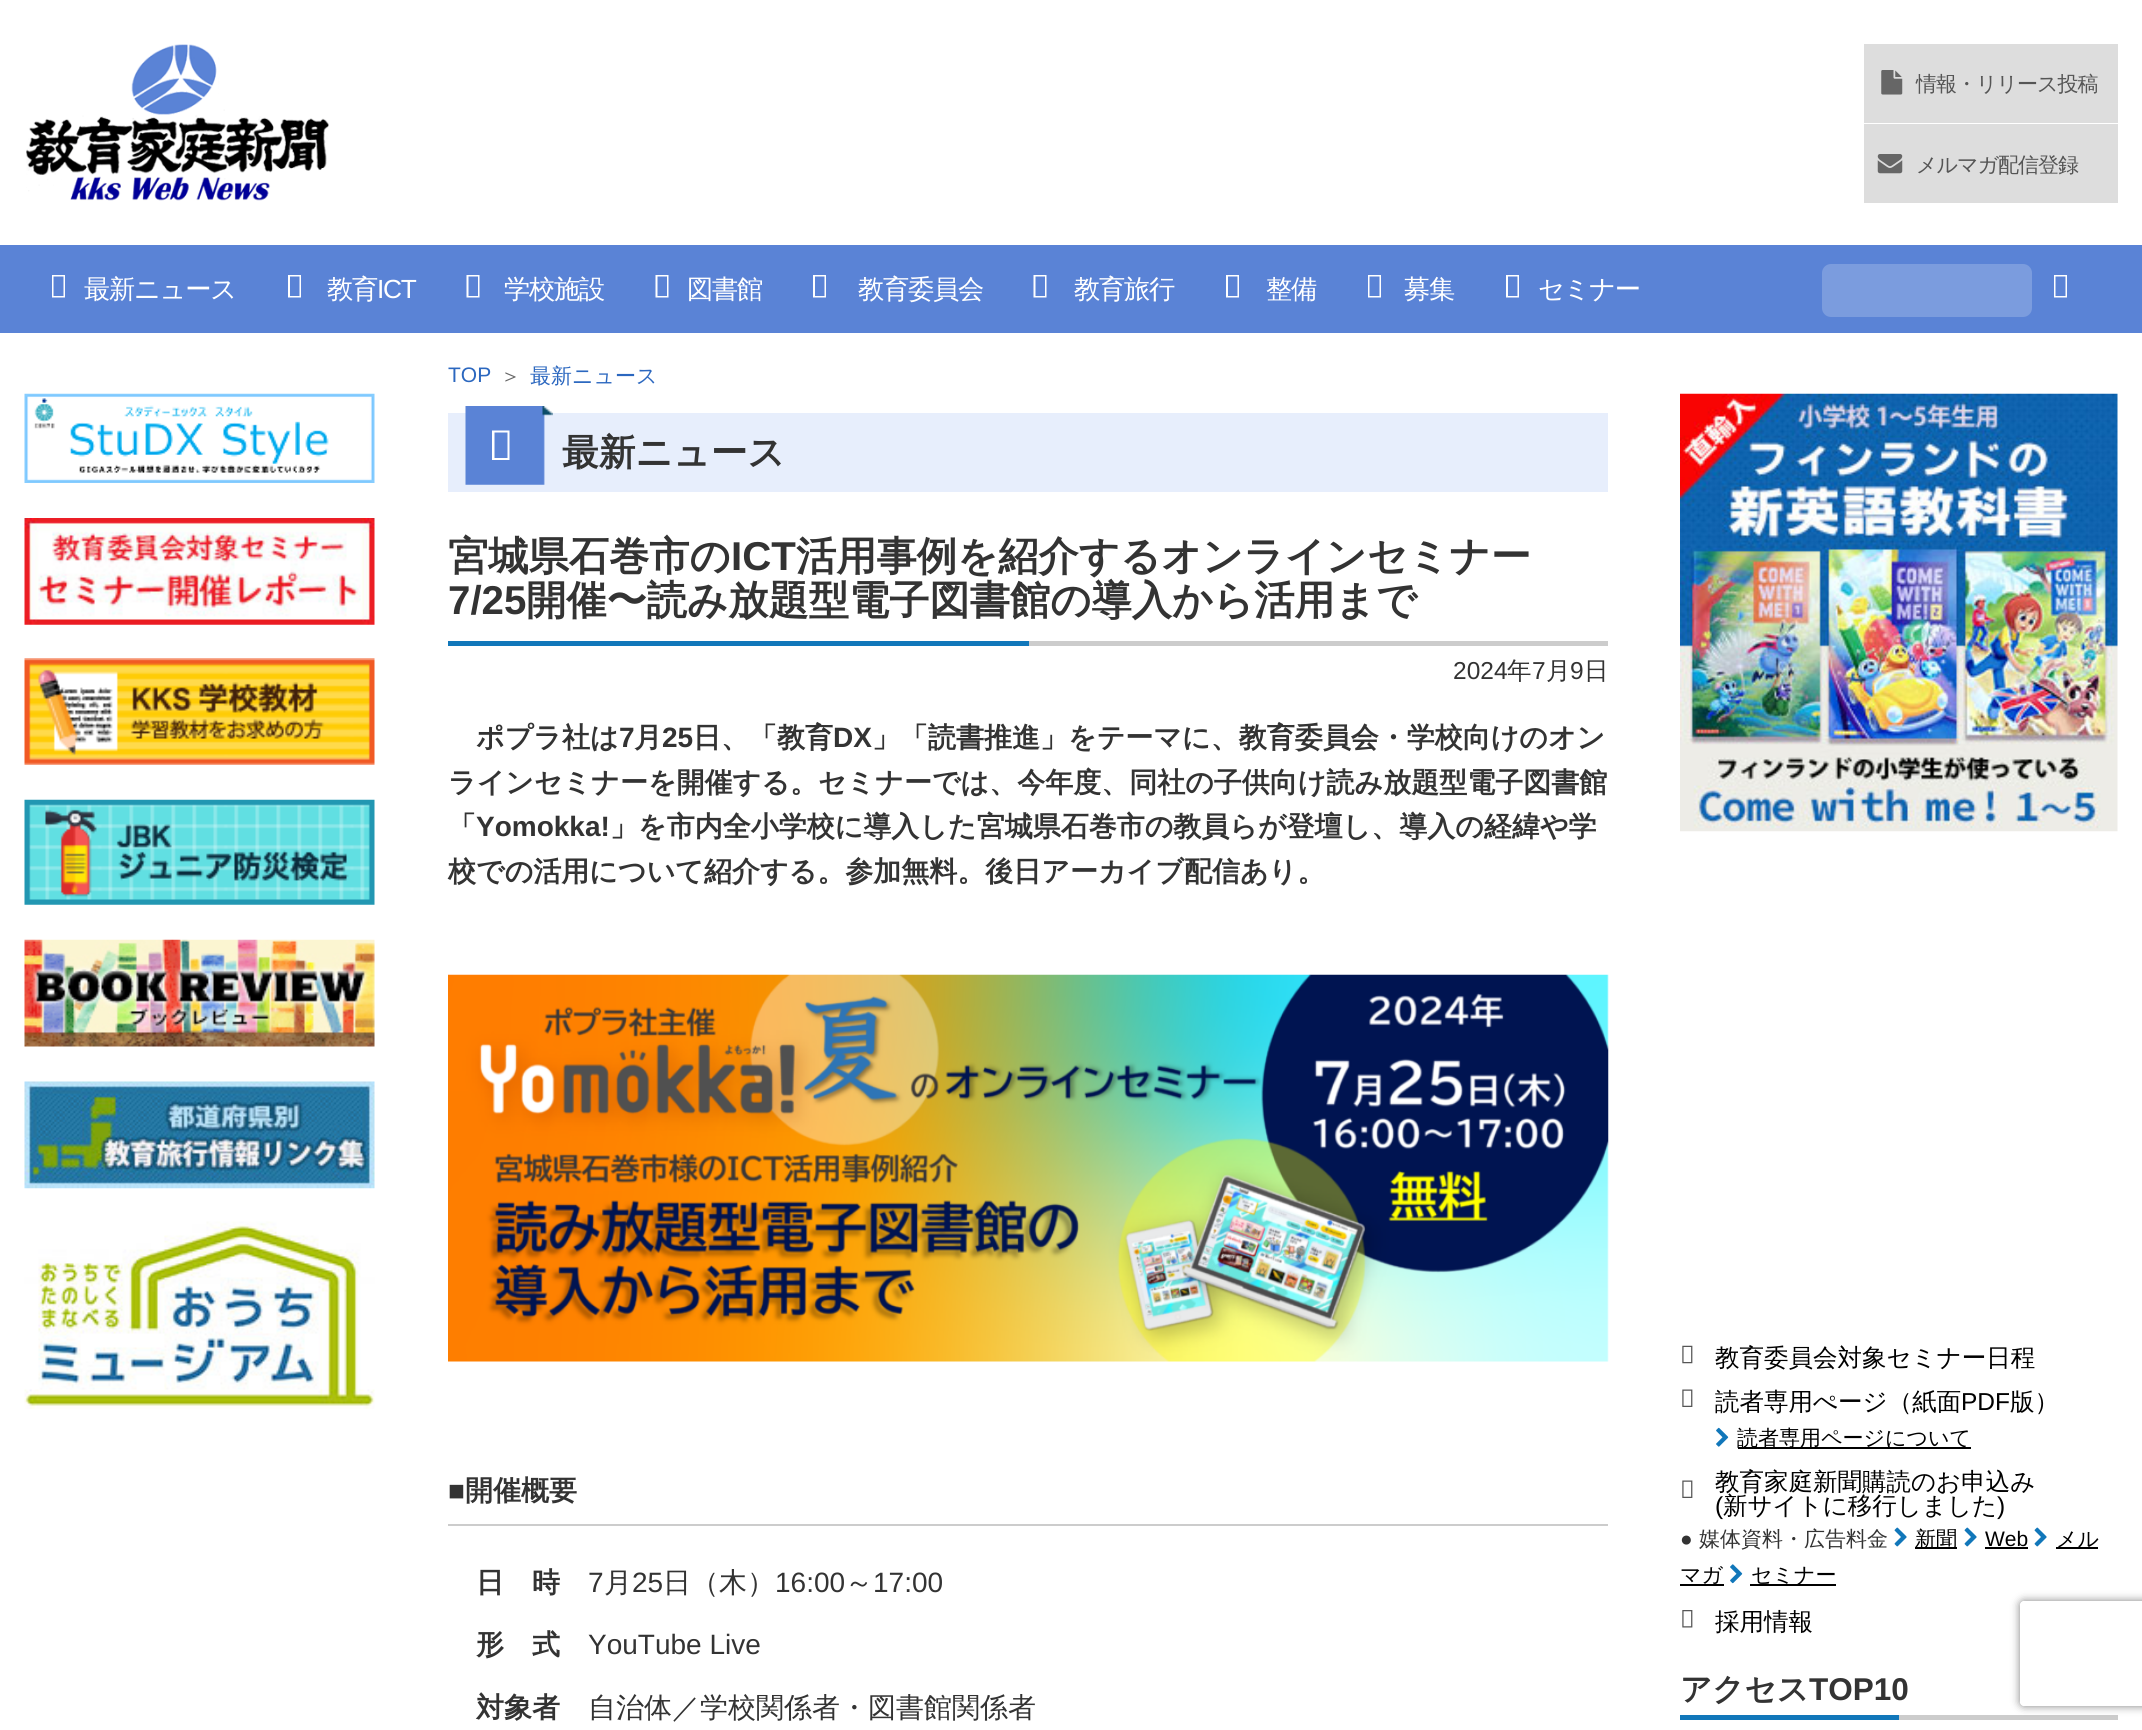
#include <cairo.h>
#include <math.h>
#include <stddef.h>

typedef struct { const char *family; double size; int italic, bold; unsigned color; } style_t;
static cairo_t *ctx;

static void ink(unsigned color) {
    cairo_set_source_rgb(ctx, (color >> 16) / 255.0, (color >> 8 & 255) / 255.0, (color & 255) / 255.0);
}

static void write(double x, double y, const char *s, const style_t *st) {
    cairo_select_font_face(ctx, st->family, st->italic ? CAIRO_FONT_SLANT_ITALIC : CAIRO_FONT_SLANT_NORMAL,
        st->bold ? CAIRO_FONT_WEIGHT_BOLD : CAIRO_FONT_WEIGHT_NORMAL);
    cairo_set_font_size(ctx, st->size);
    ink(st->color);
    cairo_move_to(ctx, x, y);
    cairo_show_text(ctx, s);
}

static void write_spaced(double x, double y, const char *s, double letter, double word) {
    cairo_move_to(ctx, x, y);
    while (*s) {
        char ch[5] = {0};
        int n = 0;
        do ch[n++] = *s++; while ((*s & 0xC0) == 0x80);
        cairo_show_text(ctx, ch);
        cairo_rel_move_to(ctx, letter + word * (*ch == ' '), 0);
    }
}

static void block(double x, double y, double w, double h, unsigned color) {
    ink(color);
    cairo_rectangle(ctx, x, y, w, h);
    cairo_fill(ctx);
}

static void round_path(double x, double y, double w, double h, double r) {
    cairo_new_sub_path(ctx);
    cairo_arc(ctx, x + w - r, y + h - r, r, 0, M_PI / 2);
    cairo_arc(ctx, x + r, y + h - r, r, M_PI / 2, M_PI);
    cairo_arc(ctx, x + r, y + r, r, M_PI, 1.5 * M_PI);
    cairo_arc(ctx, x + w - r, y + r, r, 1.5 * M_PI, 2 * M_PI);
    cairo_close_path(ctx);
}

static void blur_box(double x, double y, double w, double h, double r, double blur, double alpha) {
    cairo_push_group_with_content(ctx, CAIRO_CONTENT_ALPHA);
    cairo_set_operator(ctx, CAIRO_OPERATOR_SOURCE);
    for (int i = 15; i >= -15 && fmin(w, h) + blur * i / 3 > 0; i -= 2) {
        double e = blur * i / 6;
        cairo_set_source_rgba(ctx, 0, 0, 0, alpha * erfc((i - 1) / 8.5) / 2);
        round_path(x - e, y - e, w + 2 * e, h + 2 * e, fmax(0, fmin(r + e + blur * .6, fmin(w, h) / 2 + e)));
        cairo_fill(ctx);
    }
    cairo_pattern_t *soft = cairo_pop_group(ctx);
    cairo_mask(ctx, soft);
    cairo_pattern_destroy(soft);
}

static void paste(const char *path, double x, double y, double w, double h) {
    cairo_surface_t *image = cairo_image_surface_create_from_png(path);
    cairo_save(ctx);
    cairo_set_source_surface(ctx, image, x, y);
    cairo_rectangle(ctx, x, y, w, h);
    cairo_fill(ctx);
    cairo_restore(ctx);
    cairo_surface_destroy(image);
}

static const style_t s1 = {"Liberation Sans", 21, 0, 0, 0x2b67bf};
static const style_t s2 = {"WenQuanYi Zen Hei Medium", 21, 0, 0, 0x666666};
static const style_t s3 = {"WenQuanYi Zen Hei Medium", 21, 0, 0, 0x2b67bf};
static const style_t s4 = {"WenQuanYi Zen Hei", 36.75, 0, 1, 0x333333};
static const style_t s5 = {"WenQuanYi Zen Hei", 40.25, 0, 1, 0x333333};
static const style_t s6 = {"Liberation Sans", 40.25, 0, 1, 0x333333};
static const style_t s7 = {"Liberation Sans", 24.5, 0, 0, 0x333333};
static const style_t s8 = {"WenQuanYi Zen Hei Medium", 24.5, 0, 0, 0x333333};
static const style_t s9 = {"WenQuanYi Zen Hei", 28, 0, 1, 0x333333};
static const style_t s10 = {"Liberation Sans", 28, 0, 1, 0x333333};
static const style_t s11 = {"Liberation Sans", 28, 0, 0, 0x333333};
static const style_t s12 = {"WenQuanYi Zen Hei Medium", 28, 0, 0, 0x333333};
static const style_t s13 = {"WenQuanYi Zen Hei Medium", 24.5, 0, 0, 0x000000};
static const style_t s14 = {"Liberation Sans", 24.5, 0, 0, 0x000000};
static const style_t s15 = {"WenQuanYi Zen Hei Medium", 21, 0, 0, 0x000000};
static const style_t s16 = {"Liberation Sans", 21, 0, 0, 0x333333};
static const style_t s17 = {"WenQuanYi Zen Hei Medium", 21, 0, 0, 0x333333};
static const style_t s18 = {"Liberation Sans", 21, 0, 0, 0x000000};
static const style_t s19 = {"WenQuanYi Zen Hei", 31.5, 0, 1, 0x333333};
static const style_t s20 = {"Liberation Sans", 31.5, 0, 1, 0x333333};

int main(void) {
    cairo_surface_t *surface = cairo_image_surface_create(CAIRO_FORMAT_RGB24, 2142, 1730);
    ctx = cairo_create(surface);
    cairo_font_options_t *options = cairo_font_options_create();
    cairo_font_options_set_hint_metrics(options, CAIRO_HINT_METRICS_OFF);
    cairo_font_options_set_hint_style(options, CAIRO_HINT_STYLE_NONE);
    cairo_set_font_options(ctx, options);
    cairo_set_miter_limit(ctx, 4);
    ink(0xffffff);
    cairo_paint(ctx);
    paste("pic1.png", 26, 44, 303, 157);
    block(1864, 44, 254, 79, 0xdddddd);
    paste("pic2.png", 1881, 70, 22, 25);
    cairo_select_font_face(ctx, "WenQuanYi Zen Hei Medium", CAIRO_FONT_SLANT_NORMAL, CAIRO_FONT_WEIGHT_NORMAL);
    cairo_set_font_size(ctx, 21);
    ink(0x555555);
    write_spaced(1916, 91, "情報・リリース投稿", -1, 0);
    block(1864, 124, 254, 79, 0xdddddd);
    paste("pic3.png", 1877, 154, 26, 20);
    ink(0x555555);
    write_spaced(1916, 172, "メルマガ配信登録", -1, 0);
    block(0, 245, 2142, 88, 0x5a83d6);
    ink(0xffffff);
    cairo_new_path(ctx);
    cairo_move_to(ctx, 52, 297.5);
    cairo_line_to(ctx, 52, 275);
    cairo_line_to(ctx, 65, 275);
    cairo_line_to(ctx, 65, 297.5);
    cairo_close_path(ctx);
    cairo_move_to(ctx, 53.5, 296);
    cairo_line_to(ctx, 63.5, 296);
    cairo_line_to(ctx, 63.5, 276.5);
    cairo_line_to(ctx, 53.5, 276.5);
    cairo_close_path(ctx);
    cairo_fill(ctx);
    cairo_set_font_size(ctx, 26.25);
    write_spaced(84, 298, "最新ニュース", -1.25, 0);
    cairo_new_path(ctx);
    cairo_move_to(ctx, 288, 297.5);
    cairo_line_to(ctx, 288, 275);
    cairo_line_to(ctx, 301, 275);
    cairo_line_to(ctx, 301, 297.5);
    cairo_close_path(ctx);
    cairo_move_to(ctx, 290, 296);
    cairo_line_to(ctx, 299.5, 296);
    cairo_line_to(ctx, 299.5, 276.5);
    cairo_line_to(ctx, 290, 276.5);
    cairo_close_path(ctx);
    cairo_fill(ctx);
    write_spaced(327, 298, "教育", -1.25, 0);
    cairo_select_font_face(ctx, "Liberation Sans", CAIRO_FONT_SLANT_NORMAL, CAIRO_FONT_WEIGHT_NORMAL);
    write_spaced(377, 298, "ICT", -1.25, 0);
    cairo_new_path(ctx);
    cairo_move_to(ctx, 466.5, 297.5);
    cairo_line_to(ctx, 466.5, 275);
    cairo_line_to(ctx, 479.5, 275);
    cairo_line_to(ctx, 479.5, 297.5);
    cairo_close_path(ctx);
    cairo_move_to(ctx, 468.5, 296);
    cairo_line_to(ctx, 478, 296);
    cairo_line_to(ctx, 478, 276.5);
    cairo_line_to(ctx, 468.5, 276.5);
    cairo_close_path(ctx);
    cairo_fill(ctx);
    cairo_select_font_face(ctx, "WenQuanYi Zen Hei Medium", CAIRO_FONT_SLANT_NORMAL, CAIRO_FONT_WEIGHT_NORMAL);
    write_spaced(504, 298, "学校施設", -1.25, 0);
    cairo_new_path(ctx);
    cairo_move_to(ctx, 655.5, 297.5);
    cairo_line_to(ctx, 655.5, 275);
    cairo_line_to(ctx, 668.5, 275);
    cairo_line_to(ctx, 668.5, 297.5);
    cairo_close_path(ctx);
    cairo_move_to(ctx, 657.5, 296);
    cairo_line_to(ctx, 667, 296);
    cairo_line_to(ctx, 667, 276.5);
    cairo_line_to(ctx, 657.5, 276.5);
    cairo_close_path(ctx);
    cairo_fill(ctx);
    write_spaced(687, 298, "図書館", -1.25, 0);
    cairo_new_path(ctx);
    cairo_move_to(ctx, 813, 297.5);
    cairo_line_to(ctx, 813, 275);
    cairo_line_to(ctx, 826, 275);
    cairo_line_to(ctx, 826, 297.5);
    cairo_close_path(ctx);
    cairo_move_to(ctx, 815, 296);
    cairo_line_to(ctx, 824.5, 296);
    cairo_line_to(ctx, 824.5, 276.5);
    cairo_line_to(ctx, 815, 276.5);
    cairo_close_path(ctx);
    cairo_fill(ctx);
    write_spaced(858, 298, "教育委員会", -1.25, 0);
    cairo_new_path(ctx);
    cairo_move_to(ctx, 1033.5, 297.5);
    cairo_line_to(ctx, 1033.5, 275);
    cairo_line_to(ctx, 1046.5, 275);
    cairo_line_to(ctx, 1046.5, 297.5);
    cairo_close_path(ctx);
    cairo_move_to(ctx, 1035.5, 296);
    cairo_line_to(ctx, 1045, 296);
    cairo_line_to(ctx, 1045, 276.5);
    cairo_line_to(ctx, 1035.5, 276.5);
    cairo_close_path(ctx);
    cairo_fill(ctx);
    write_spaced(1074, 298, "教育旅行", -1.25, 0);
    cairo_new_path(ctx);
    cairo_move_to(ctx, 1226, 297.5);
    cairo_line_to(ctx, 1226, 275);
    cairo_line_to(ctx, 1239, 275);
    cairo_line_to(ctx, 1239, 297.5);
    cairo_close_path(ctx);
    cairo_move_to(ctx, 1228, 296);
    cairo_line_to(ctx, 1237.5, 296);
    cairo_line_to(ctx, 1237.5, 276.5);
    cairo_line_to(ctx, 1228, 276.5);
    cairo_close_path(ctx);
    cairo_fill(ctx);
    write_spaced(1266, 298, "整備", -1.25, 0);
    cairo_new_path(ctx);
    cairo_move_to(ctx, 1368, 297.5);
    cairo_line_to(ctx, 1368, 275);
    cairo_line_to(ctx, 1381, 275);
    cairo_line_to(ctx, 1381, 297.5);
    cairo_close_path(ctx);
    cairo_move_to(ctx, 1369.5, 296);
    cairo_line_to(ctx, 1379.5, 296);
    cairo_line_to(ctx, 1379.5, 276.5);
    cairo_line_to(ctx, 1369.5, 276.5);
    cairo_close_path(ctx);
    cairo_fill(ctx);
    write_spaced(1404, 298, "募集", -1.25, 0);
    cairo_new_path(ctx);
    cairo_move_to(ctx, 1506, 297.5);
    cairo_line_to(ctx, 1506, 275);
    cairo_line_to(ctx, 1519, 275);
    cairo_line_to(ctx, 1519, 297.5);
    cairo_close_path(ctx);
    cairo_move_to(ctx, 1508, 296);
    cairo_line_to(ctx, 1517.5, 296);
    cairo_line_to(ctx, 1517.5, 276.5);
    cairo_line_to(ctx, 1508, 276.5);
    cairo_close_path(ctx);
    cairo_fill(ctx);
    write_spaced(1538, 298, "セミナー", -1.25, 0);
    ink(0x7b9cde);
    round_path(1822, 264, 210, 53, 9);
    cairo_fill(ctx);
    ink(0xffffff);
    cairo_new_path(ctx);
    cairo_move_to(ctx, 2054, 297.5);
    cairo_line_to(ctx, 2054, 275);
    cairo_line_to(ctx, 2067, 275);
    cairo_line_to(ctx, 2067, 297.5);
    cairo_close_path(ctx);
    cairo_move_to(ctx, 2055.5, 296);
    cairo_line_to(ctx, 2065.5, 296);
    cairo_line_to(ctx, 2065.5, 276.5);
    cairo_line_to(ctx, 2055.5, 276.5);
    cairo_close_path(ctx);
    cairo_fill(ctx);
    paste("pic4.png", 24, 393, 351, 90);
    paste("pic5.png", 24, 518, 351, 107);
    paste("pic6.png", 24, 658, 351, 107);
    paste("pic7.png", 24, 799, 351, 106);
    paste("pic8.png", 24, 939, 351, 108);
    paste("pic9.png", 24, 1081, 351, 108);
    paste("pic10.png", 24, 1221, 351, 188);
    write(448, 382, "TOP", &s1);
    write(500, 383, "＞", &s2);
    write(530, 383, "最新ニュース", &s3);
    block(448, 413, 1160, 79, 0xe7eefc);
    paste("pic11.png", 465, 406, 88, 79);
    ink(0xffffff);
    cairo_new_path(ctx);
    cairo_move_to(ctx, 492, 460);
    cairo_line_to(ctx, 492, 430.5);
    cairo_line_to(ctx, 509.5, 430.5);
    cairo_line_to(ctx, 509.5, 460);
    cairo_close_path(ctx);
    cairo_move_to(ctx, 494.5, 458);
    cairo_line_to(ctx, 507.5, 458);
    cairo_line_to(ctx, 507.5, 432.5);
    cairo_line_to(ctx, 494.5, 432.5);
    cairo_close_path(ctx);
    cairo_fill(ctx);
    write(562, 465, "最新ニュース", &s4);
    block(1029, 641, 579, 5, 0xcccccc);
    write(448, 570, "宮城県石巻市の", &s5);
    write(731, 570, "ICT", &s6);
    write(796, 570, "活用事例を紹介するオンラインセミナー", &s5);
    write(448, 614, "7/25", &s6);
    write(526, 614, "開催〜読み放題型電子図書館の導入から活用まで", &s5);
    block(448, 641, 581, 5, 0x1177ba);
    write(1453, 679, "2024", &s7);
    write(1507, 679, "年", &s8);
    write(1532, 679, "7", &s7);
    write(1546, 679, "月", &s8);
    write(1570, 679, "9", &s7);
    write(1584, 679, "日", &s8);
    write(476, 747, "ポプラ社は", &s9);
    write(619, 747, "7", &s10);
    write(634, 747, "月", &s9);
    write(662, 747, "25", &s10);
    write(693, 747, "日、「教育", &s9);
    write(833, 747, "DX", &s10);
    write(872, 747, "」「読書推進」をテーマに、教育委員会・学校向けのオン", &s9);
    write(448, 792, "ラインセミナーを開催する。セミナーでは、今年度、同社の子供向け読み放題型電子図書館", &s9);
    write(448, 836, "「", &s9);
    write(476, 836, "Yomokka!", &s10);
    write(610, 836, "」を市内全小学校に導入した宮城県石巻市の教員らが登壇し、導入の経緯や学", &s9);
    write(448, 881, "校での活用について紹介する。参加無料。後日アーカイブ配信あり。", &s9);
    paste("pic12.png", 448, 974, 1161, 388);
    block(448, 1524, 1160, 2, 0xcccccc);
    write(448, 1500, "■", &s10);
    write(465, 1500, "開催概要", &s9);
    write(476, 1592, "日　時", &s9);
    write(588, 1592, "7", &s11);
    write(604, 1592, "月", &s12);
    write(632, 1592, "25", &s11);
    write(663, 1592, "日（木）", &s12);
    write(775, 1592, "16:00", &s11);
    write(845, 1592, "～", &s12);
    write(873, 1592, "17:00", &s11);
    write(476, 1654, "形　式", &s9);
    write(588, 1654, "YouTube Live", &s11);
    write(476, 1717, "対象者", &s9);
    write(588, 1717, "自治体／学校関係者・図書館関係者", &s12);
    paste("pic13.png", 1680, 393, 438, 439);
    paste("pic14.png", 1682, 1345, 11, 19);
    write(1715, 1366, "教育委員会対象セミナー日程", &s13);
    paste("pic15.png", 1682, 1389, 11, 18);
    write(1715, 1410, "読者専用ぺージ（紙面", &s13);
    write(1961, 1410, "PDF", &s14);
    write(2010, 1410, "版）", &s13);
    paste("pic16.png", 1716, 1427, 13, 20);
    block(1738, 1447, 233, 2, 0x000000);
    write(1737, 1445, "読者専用ページについて", &s15);
    paste("pic15.png", 1682, 1480, 11, 18);
    write(1715, 1490, "教育家庭新聞購読のお申込み", &s13);
    write(1715, 1514, "(", &s14);
    write(1723, 1514, "新サイトに移行しました", &s13);
    write(1997, 1514, ")", &s14);
    write(1680, 1546, "●", &s16);
    write(1699, 1546, "媒体資料・広告料金", &s17);
    paste("pic17.png", 1894, 1527, 13, 20);
    block(1915, 1547, 42, 2, 0x000000);
    write(1915, 1546, "新聞", &s15);
    paste("pic17.png", 1964, 1527, 13, 20);
    write(1985, 1546, "Web", &s18);
    block(1985, 1547, 43, 2, 0x000000);
    paste("pic17.png", 2034, 1527, 13, 20);
    block(2056, 1547, 42, 2, 0x000000);
    write(2056, 1546, "メル", &s15);
    write(1680, 1582, "マガ", &s15);
    block(1680, 1584, 44, 2, 0x000000);
    paste("pic18.png", 1730, 1564, 13, 20);
    block(1750, 1584, 86, 2, 0x000000);
    write(1751, 1582, "セミナー", &s15);
    paste("pic19.png", 1682, 1610, 11, 18);
    write(1715, 1630, "採用情報", &s13);
    block(1899, 1715, 219, 5, 0xcccccc);
    write(1680, 1700, "アクセス", &s19);
    write(1809, 1700, "TOP10", &s20);
    block(1680, 1715, 219, 5, 0x1177ba);
    cairo_save(ctx);
    cairo_set_fill_rule(ctx, CAIRO_FILL_RULE_EVEN_ODD);
    cairo_new_path(ctx);
    cairo_move_to(ctx, 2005, 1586);
    cairo_line_to(ctx, 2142, 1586);
    cairo_line_to(ctx, 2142, 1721);
    cairo_line_to(ctx, 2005, 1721);
    cairo_close_path(ctx);
    cairo_move_to(ctx, 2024, 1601);
    cairo_line_to(ctx, 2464, 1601);
    cairo_curve_to(ctx, 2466, 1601, 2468, 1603, 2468, 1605);
    cairo_line_to(ctx, 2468, 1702);
    cairo_curve_to(ctx, 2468, 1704, 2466, 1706, 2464, 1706);
    cairo_line_to(ctx, 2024, 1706);
    cairo_curve_to(ctx, 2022, 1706, 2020, 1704, 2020, 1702);
    cairo_line_to(ctx, 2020, 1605);
    cairo_curve_to(ctx, 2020, 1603, 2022, 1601, 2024, 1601);
    cairo_close_path(ctx);
    cairo_clip(ctx);
    ink(0x808080);
    blur_box(2020, 1601, 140, 105, 4, 4.5, 1);
    cairo_restore(ctx);
    cairo_surface_write_to_png(surface, "screenshot.png");
    cairo_font_options_destroy(options);
    cairo_destroy(ctx);
    cairo_surface_destroy(surface);
    return 0;
}
